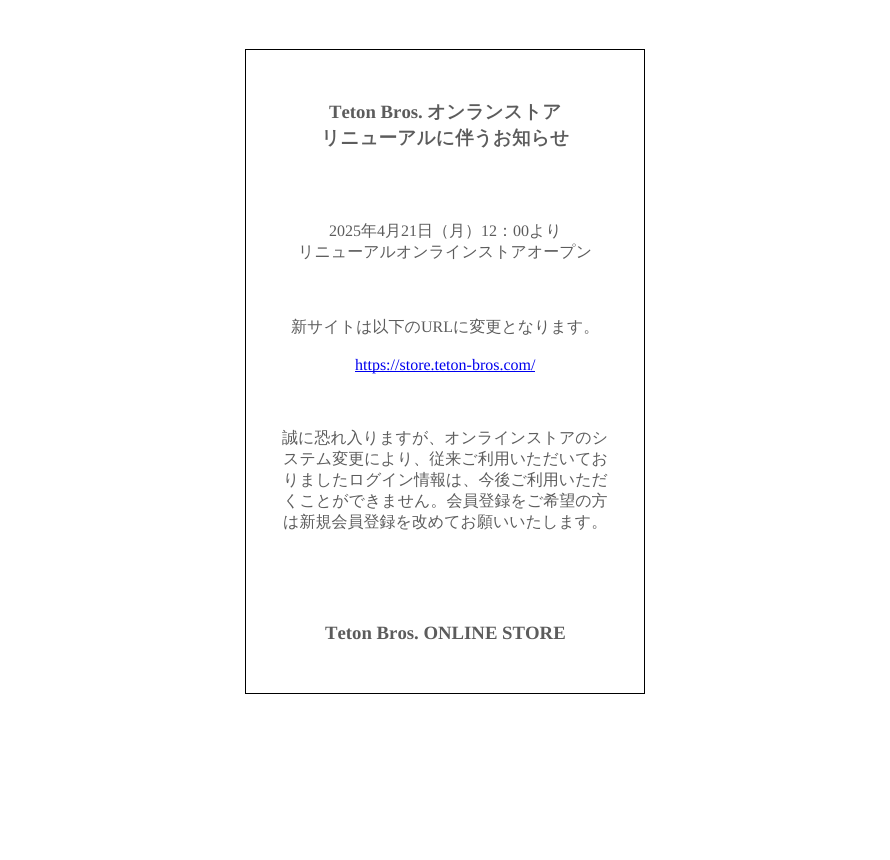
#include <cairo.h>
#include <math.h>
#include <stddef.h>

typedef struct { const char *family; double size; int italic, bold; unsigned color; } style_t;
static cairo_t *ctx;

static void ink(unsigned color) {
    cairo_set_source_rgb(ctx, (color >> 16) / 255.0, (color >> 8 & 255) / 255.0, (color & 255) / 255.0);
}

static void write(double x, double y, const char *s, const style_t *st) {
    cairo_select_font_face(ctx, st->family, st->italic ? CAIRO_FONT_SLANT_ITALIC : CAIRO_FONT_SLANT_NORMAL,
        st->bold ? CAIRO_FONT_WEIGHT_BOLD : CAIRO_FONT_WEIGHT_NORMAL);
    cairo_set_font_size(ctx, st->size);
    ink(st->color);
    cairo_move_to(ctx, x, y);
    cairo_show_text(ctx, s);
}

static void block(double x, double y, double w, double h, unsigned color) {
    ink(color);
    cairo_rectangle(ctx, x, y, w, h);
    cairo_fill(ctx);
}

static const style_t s1 = {"Liberation Serif", 18.75, 0, 1, 0x5c5c5c};
static const style_t s2 = {"WenQuanYi Zen Hei", 18.75, 0, 1, 0x5c5c5c};
static const style_t s3 = {"Liberation Serif", 16, 0, 0, 0x5c5c5c};
static const style_t s4 = {"WenQuanYi Zen Hei Medium", 16, 0, 0, 0x5c5c5c};
static const style_t s5 = {"Liberation Serif", 16, 0, 0, 0x0000ee};

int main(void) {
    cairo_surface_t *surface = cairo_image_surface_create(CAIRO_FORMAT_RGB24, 890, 860);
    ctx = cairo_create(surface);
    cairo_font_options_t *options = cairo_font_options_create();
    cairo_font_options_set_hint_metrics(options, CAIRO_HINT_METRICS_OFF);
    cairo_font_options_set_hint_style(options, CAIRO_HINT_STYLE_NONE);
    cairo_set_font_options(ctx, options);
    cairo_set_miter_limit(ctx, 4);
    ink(0xffffff);
    cairo_paint(ctx);
    cairo_rectangle(ctx, 245.5, 49.5, 399, 644);
    ink(0x000000);
    cairo_set_line_width(ctx, 1);
    cairo_stroke(ctx);
    write(329, 118, "Teton Bros.", &s1);
    write(427, 118, "オンランストア", &s2);
    write(321, 144, "リニューアルに伴うお知らせ", &s2);
    write(329, 236, "2025", &s3);
    write(361, 236, "年", &s4);
    write(377, 236, "4", &s3);
    write(385, 236, "月", &s4);
    write(401, 236, "21", &s3);
    write(417, 236, "日（月）", &s4);
    write(481, 236, "12", &s3);
    write(497, 236, "：", &s4);
    write(513, 236, "00", &s3);
    write(529, 236, "より", &s4);
    write(298, 257, "リニューアルオンラインストアオープン", &s4);
    write(291, 332, "新サイトは以下の", &s4);
    write(421, 332, "URL", &s3);
    write(453, 332, "に変更となります。", &s4);
    block(355, 371, 180, 1, 0x0000ee);
    write(355, 370, "https://store.teton-bros.com/", &s5);
    write(282, 443, "誠に恐れ入りますが、オンラインストアのシ", &s4);
    write(283, 464, "ステム変更により、従来ご利用いただいてお", &s4);
    write(283, 485, "りましたログイン情報は、今後ご利用いただ", &s4);
    write(283, 506, "くことができません。会員登録をご希望の方", &s4);
    write(283, 527, "は新規会員登録を改めてお願いいたします。", &s4);
    write(325, 639, "Teton Bros. ONLINE STORE", &s1);
    cairo_surface_write_to_png(surface, "screenshot.png");
    cairo_font_options_destroy(options);
    cairo_destroy(ctx);
    cairo_surface_destroy(surface);
    return 0;
}
